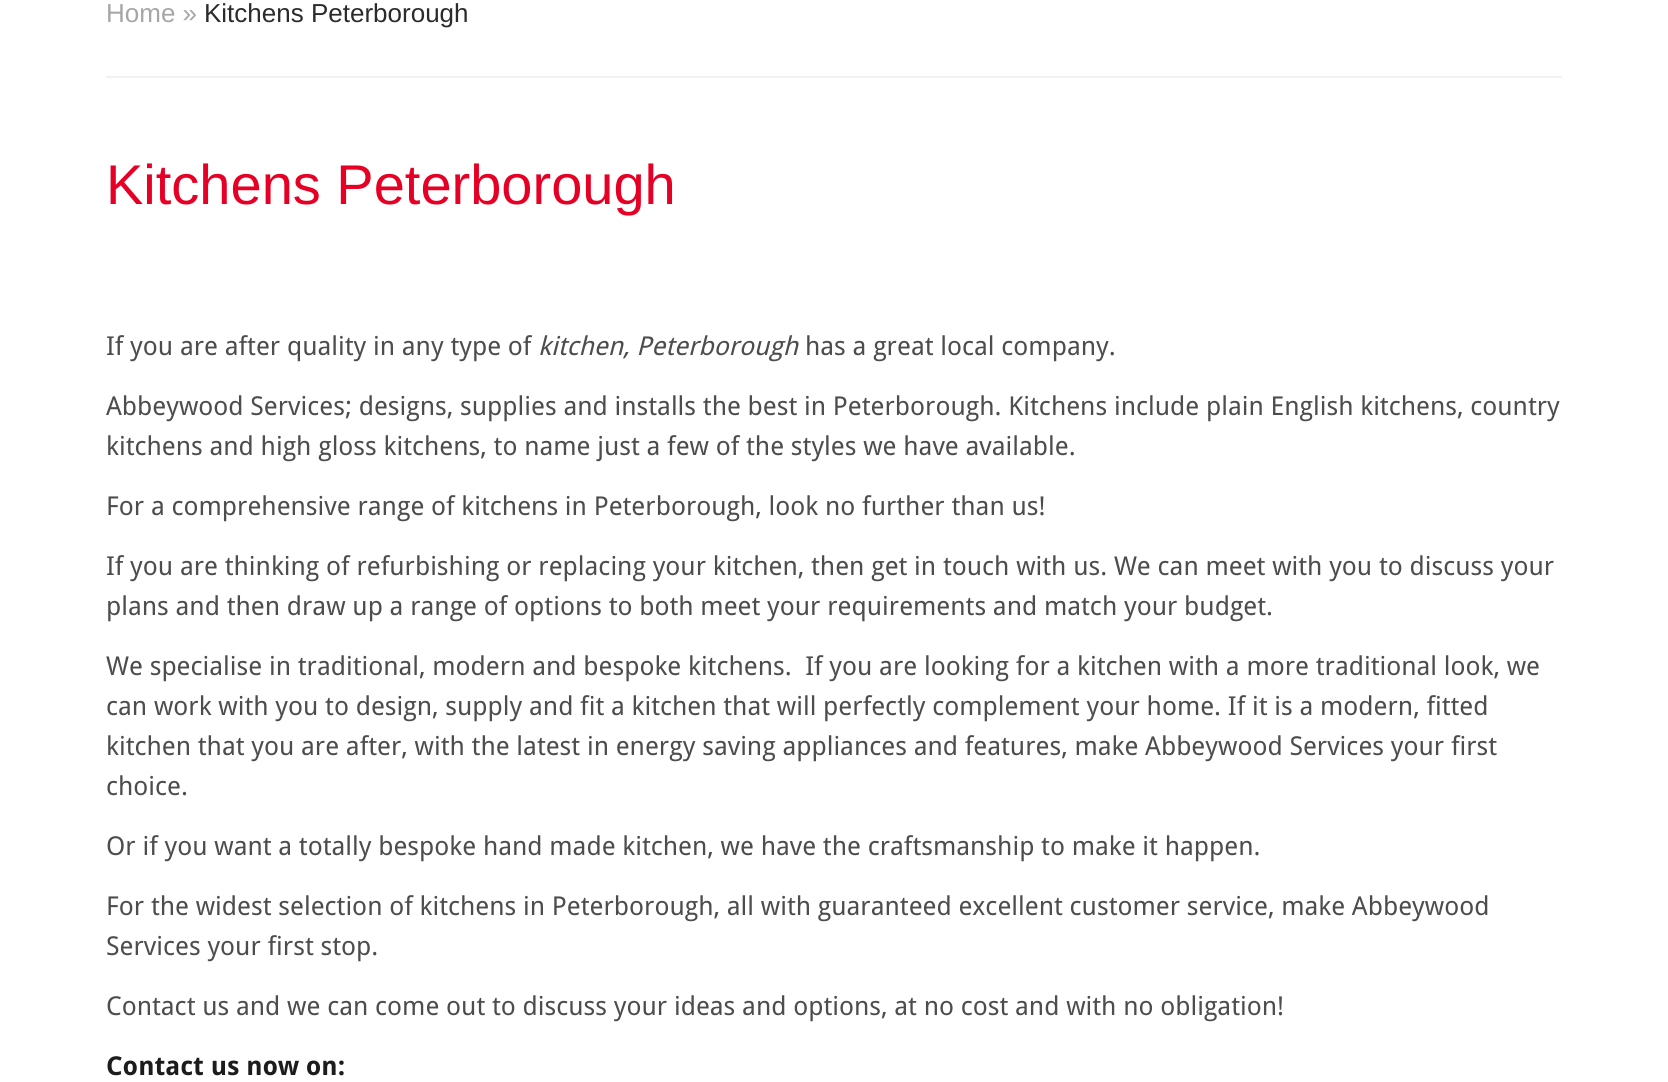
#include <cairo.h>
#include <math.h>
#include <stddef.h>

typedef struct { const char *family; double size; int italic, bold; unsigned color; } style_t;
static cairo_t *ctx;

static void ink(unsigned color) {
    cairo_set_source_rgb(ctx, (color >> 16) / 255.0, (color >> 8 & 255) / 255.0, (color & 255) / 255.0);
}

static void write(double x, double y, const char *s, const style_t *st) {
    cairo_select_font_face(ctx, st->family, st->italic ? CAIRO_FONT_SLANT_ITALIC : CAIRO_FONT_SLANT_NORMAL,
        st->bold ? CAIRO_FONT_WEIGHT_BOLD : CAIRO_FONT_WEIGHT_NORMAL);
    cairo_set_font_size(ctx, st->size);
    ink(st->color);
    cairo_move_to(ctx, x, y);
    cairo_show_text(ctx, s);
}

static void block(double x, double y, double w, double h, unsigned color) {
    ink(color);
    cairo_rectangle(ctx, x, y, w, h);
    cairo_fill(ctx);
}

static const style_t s1 = {"Liberation Sans", 26, 0, 0, 0xa6a6a6};
static const style_t s2 = {"Liberation Sans", 26, 0, 0, 0x2b2b2b};
static const style_t s3 = {"Liberation Sans", 56, 0, 0, 0xe70025};
static const style_t s4 = {"Droid Sans", 26, 0, 0, 0x4d4d4d};
static const style_t s5 = {"Droid Sans", 26, 1, 0, 0x4d4d4d};
static const style_t s6 = {"Droid Sans", 26, 0, 1, 0x1c1c1c};

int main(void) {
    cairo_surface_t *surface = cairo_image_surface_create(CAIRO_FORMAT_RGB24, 1668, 1082);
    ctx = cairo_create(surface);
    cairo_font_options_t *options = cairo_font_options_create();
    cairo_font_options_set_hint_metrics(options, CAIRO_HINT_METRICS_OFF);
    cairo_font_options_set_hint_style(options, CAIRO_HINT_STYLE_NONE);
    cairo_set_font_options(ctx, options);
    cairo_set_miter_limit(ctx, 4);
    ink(0xffffff);
    cairo_paint(ctx);
    block(106, 76, 1456, 2, 0xf1f1f1);
    write(106, 22, "Home »", &s1);
    write(204, 22, "Kitchens Peterborough", &s2);
    write(106, 204, "Kitchens Peterborough", &s3);
    write(106, 355, "If you are after quality in any type of", &s4);
    write(538, 355, "kitchen, Peterborough", &s5);
    write(805, 355, "has a great local company.", &s4);
    write(106, 415, "Abbeywood Services; designs, supplies and installs the best in Peterborough. Kitchens include plain English kitchens, country", &s4);
    write(106, 455, "kitchens and high gloss kitchens, to name just a few of the styles we have available.", &s4);
    write(106, 515, "For a comprehensive range of kitchens in Peterborough, look no further than us!", &s4);
    write(106, 575, "If you are thinking of refurbishing or replacing your kitchen, then get in touch with us. We can meet with you to discuss your", &s4);
    write(106, 615, "plans and then draw up a range of options to both meet your requirements and match your budget.", &s4);
    write(106, 675, "We specialise in traditional, modern and bespoke kitchens.  If you are looking for a kitchen with a more traditional look, we", &s4);
    write(106, 715, "can work with you to design, supply and fit a kitchen that will perfectly complement your home. If it is a modern, fitted", &s4);
    write(106, 755, "kitchen that you are after, with the latest in energy saving appliances and features, make Abbeywood Services your first", &s4);
    write(106, 795, "choice.", &s4);
    write(106, 855, "Or if you want a totally bespoke hand made kitchen, we have the craftsmanship to make it happen.", &s4);
    write(106, 915, "For the widest selection of kitchens in Peterborough, all with guaranteed excellent customer service, make Abbeywood", &s4);
    write(106, 955, "Services your first stop.", &s4);
    write(106, 1015, "Contact us and we can come out to discuss your ideas and options, at no cost and with no obligation!", &s4);
    write(106, 1075, "Contact us now on:", &s6);
    cairo_surface_write_to_png(surface, "screenshot.png");
    cairo_font_options_destroy(options);
    cairo_destroy(ctx);
    cairo_surface_destroy(surface);
    return 0;
}
